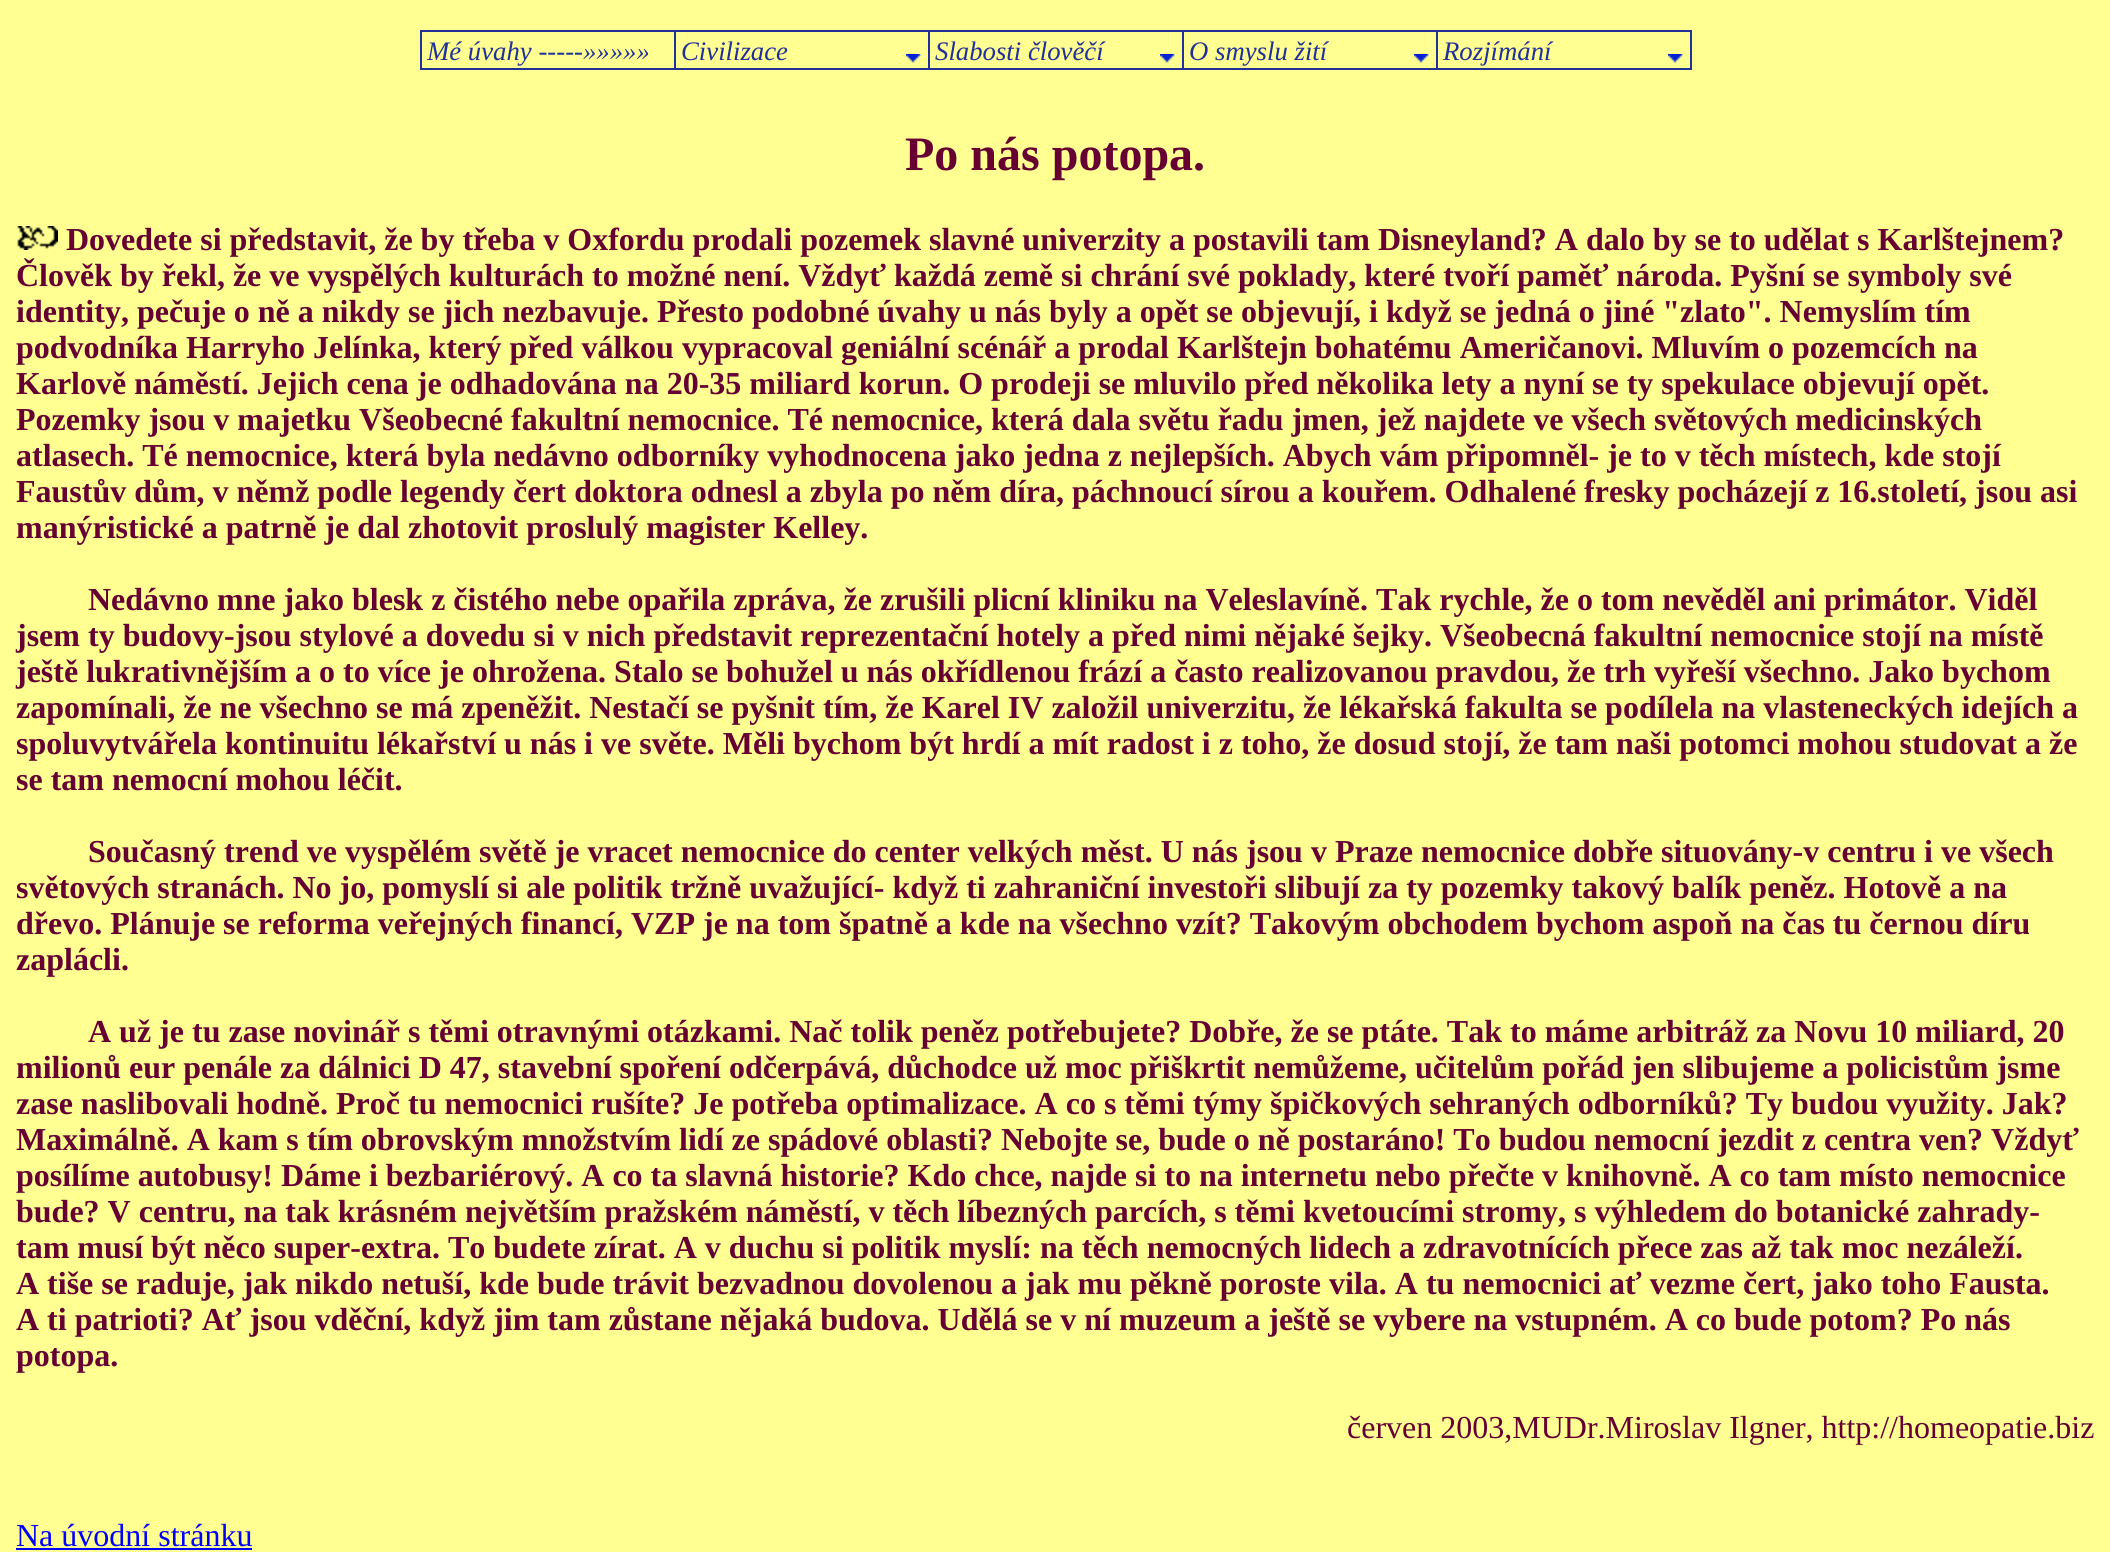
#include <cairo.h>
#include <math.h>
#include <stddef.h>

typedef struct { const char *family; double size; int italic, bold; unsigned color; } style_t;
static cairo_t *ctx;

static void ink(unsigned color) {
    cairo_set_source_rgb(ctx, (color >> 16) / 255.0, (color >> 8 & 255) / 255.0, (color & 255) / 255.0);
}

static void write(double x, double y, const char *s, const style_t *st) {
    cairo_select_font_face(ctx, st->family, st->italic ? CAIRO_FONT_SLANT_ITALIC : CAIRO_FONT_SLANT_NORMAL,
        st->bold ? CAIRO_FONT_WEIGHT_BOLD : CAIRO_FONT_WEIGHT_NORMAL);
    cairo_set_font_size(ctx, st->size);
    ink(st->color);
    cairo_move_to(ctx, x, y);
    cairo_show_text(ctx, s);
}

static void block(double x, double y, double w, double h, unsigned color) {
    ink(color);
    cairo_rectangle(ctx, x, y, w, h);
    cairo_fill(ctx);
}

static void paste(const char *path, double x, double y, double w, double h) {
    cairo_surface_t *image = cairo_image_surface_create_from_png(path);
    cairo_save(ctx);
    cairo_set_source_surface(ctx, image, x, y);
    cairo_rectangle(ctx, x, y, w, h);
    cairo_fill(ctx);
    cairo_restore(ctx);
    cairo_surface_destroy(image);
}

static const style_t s1 = {"Liberation Serif", 26.75, 1, 0, 0x203098};
static const style_t s2 = {"Liberation Serif", 48, 0, 1, 0x660033};
static const style_t s3 = {"Liberation Serif", 32, 0, 1, 0x660033};
static const style_t s4 = {"Liberation Serif", 32, 0, 0, 0x660033};
static const style_t s5 = {"Liberation Serif", 32, 0, 0, 0x0000ff};

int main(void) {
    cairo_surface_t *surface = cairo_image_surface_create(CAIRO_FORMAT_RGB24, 2110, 1552);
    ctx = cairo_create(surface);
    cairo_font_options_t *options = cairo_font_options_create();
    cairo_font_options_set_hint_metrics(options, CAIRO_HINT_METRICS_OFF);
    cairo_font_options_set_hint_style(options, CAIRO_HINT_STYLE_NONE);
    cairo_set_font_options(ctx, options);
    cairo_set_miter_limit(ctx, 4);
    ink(0xffff92);
    cairo_paint(ctx);
    block(420, 30, 1272, 40, 0x203098);
    block(422, 32, 252, 36, 0xffff92);
    write(427, 60, "Mé úvahy -----»»»»»", &s1);
    block(676, 32, 252, 36, 0xffff92);
    write(681, 60, "Civilizace", &s1);
    paste("pic1.png", 906, 54, 15, 9);
    block(930, 32, 252, 36, 0xffff92);
    write(935, 60, "Slabosti člověčí", &s1);
    paste("pic1.png", 1160, 54, 15, 9);
    block(1184, 32, 252, 36, 0xffff92);
    write(1189, 60, "O smyslu žití", &s1);
    paste("pic1.png", 1414, 54, 15, 9);
    block(1438, 32, 252, 36, 0xffff92);
    write(1443, 60, "Rozjímání", &s1);
    paste("pic1.png", 1668, 54, 15, 9);
    write(905, 170, "Po nás potopa.", &s2);
    paste("pic2.png", 17, 226, 41, 24);
    write(66, 250, "Dovedete si představit, že by třeba v Oxfordu prodali pozemek slavné univerzity a postavili tam Disneyland? A dalo by se to udělat s Karlštejnem?", &s3);
    write(16, 286, "Člověk by řekl, že ve vyspělých kulturách to možné není. Vždyť každá země si chrání své poklady, které tvoří paměť národa. Pyšní se symboly své", &s3);
    write(16, 322, "identity, pečuje o ně a nikdy se jich nezbavuje. Přesto podobné úvahy u nás byly a opět se objevují, i když se jedná o jiné \"zlato\". Nemyslím tím", &s3);
    write(16, 358, "podvodníka Harryho Jelínka, který před válkou vypracoval geniální scénář a prodal Karlštejn bohatému Američanovi. Mluvím o pozemcích na", &s3);
    write(16, 394, "Karlově náměstí. Jejich cena je odhadována na 20-35 miliard korun. O prodeji se mluvilo před několika lety a nyní se ty spekulace objevují opět.", &s3);
    write(16, 430, "Pozemky jsou v majetku Všeobecné fakultní nemocnice. Té nemocnice, která dala světu řadu jmen, jež najdete ve všech světových medicinských", &s3);
    write(16, 466, "atlasech. Té nemocnice, která byla nedávno odborníky vyhodnocena jako jedna z nejlepších. Abych vám připomněl- je to v těch místech, kde stojí", &s3);
    write(16, 502, "Faustův dům, v němž podle legendy čert doktora odnesl a zbyla po něm díra, páchnoucí sírou a kouřem. Odhalené fresky pocházejí z 16.století, jsou asi", &s3);
    write(16, 538, "manýristické a patrně je dal zhotovit proslulý magister Kelley.", &s3);
    write(88, 610, "Nedávno mne jako blesk z čistého nebe opařila zpráva, že zrušili plicní kliniku na Veleslavíně. Tak rychle, že o tom nevěděl ani primátor. Viděl", &s3);
    write(16, 646, "jsem ty budovy-jsou stylové a dovedu si v nich představit reprezentační hotely a před nimi nějaké šejky. Všeobecná fakultní nemocnice stojí na místě", &s3);
    write(16, 682, "ještě lukrativnějším a o to více je ohrožena. Stalo se bohužel u nás okřídlenou frází a často realizovanou pravdou, že trh vyřeší všechno. Jako bychom", &s3);
    write(16, 718, "zapomínali, že ne všechno se má zpeněžit. Nestačí se pyšnit tím, že Karel IV založil univerzitu, že lékařská fakulta se podílela na vlasteneckých idejích a", &s3);
    write(16, 754, "spoluvytvářela kontinuitu lékařství u nás i ve světe. Měli bychom být hrdí a mít radost i z toho, že dosud stojí, že tam naši potomci mohou studovat a že", &s3);
    write(16, 790, "se tam nemocní mohou léčit.", &s3);
    write(88, 862, "Současný trend ve vyspělém světě je vracet nemocnice do center velkých měst. U nás jsou v Praze nemocnice dobře situovány-v centru i ve všech", &s3);
    write(16, 898, "světových stranách. No jo, pomyslí si ale politik tržně uvažující- když ti zahraniční investoři slibují za ty pozemky takový balík peněz. Hotově a na", &s3);
    write(16, 934, "dřevo. Plánuje se reforma veřejných financí, VZP je na tom špatně a kde na všechno vzít? Takovým obchodem bychom aspoň na čas tu černou díru", &s3);
    write(16, 970, "zaplácli.", &s3);
    write(88, 1042, "A už je tu zase novinář s těmi otravnými otázkami. Nač tolik peněz potřebujete? Dobře, že se ptáte. Tak to máme arbitráž za Novu 10 miliard, 20", &s3);
    write(16, 1078, "milionů eur penále za dálnici D 47, stavební spoření odčerpává, důchodce už moc přiškrtit nemůžeme, učitelům pořád jen slibujeme a policistům jsme", &s3);
    write(16, 1114, "zase naslibovali hodně. Proč tu nemocnici rušíte? Je potřeba optimalizace. A co s těmi týmy špičkových sehraných odborníků? Ty budou využity. Jak?", &s3);
    write(16, 1150, "Maximálně. A kam s tím obrovským množstvím lidí ze spádové oblasti? Nebojte se, bude o ně postaráno! To budou nemocní jezdit z centra ven? Vždyť", &s3);
    write(16, 1186, "posílíme autobusy! Dáme i bezbariérový. A co ta slavná historie? Kdo chce, najde si to na internetu nebo přečte v knihovně. A co tam místo nemocnice", &s3);
    write(16, 1222, "bude? V centru, na tak krásném největším pražském náměstí, v těch líbezných parcích, s těmi kvetoucími stromy, s výhledem do botanické zahrady-", &s3);
    write(16, 1258, "tam musí být něco super-extra. To budete zírat. A v duchu si politik myslí: na těch nemocných lidech a zdravotnících přece zas až tak moc nezáleží.", &s3);
    write(16, 1294, "A tiše se raduje, jak nikdo netuší, kde bude trávit bezvadnou dovolenou a jak mu pěkně poroste vila. A tu nemocnici ať vezme čert, jako toho Fausta.", &s3);
    write(16, 1330, "A ti patrioti? Ať jsou vděční, když jim tam zůstane nějaká budova. Udělá se v ní muzeum a ještě se vybere na vstupném. A co bude potom? Po nás", &s3);
    write(16, 1366, "potopa.", &s3);
    write(1347, 1438, "červen 2003,MUDr.Miroslav Ilgner, http://homeopatie.biz", &s4);
    write(16, 1546, "Na úvodní stránku", &s5);
    block(16, 1548, 236, 2, 0x0000ff);
    cairo_surface_write_to_png(surface, "screenshot.png");
    cairo_font_options_destroy(options);
    cairo_destroy(ctx);
    cairo_surface_destroy(surface);
    return 0;
}
